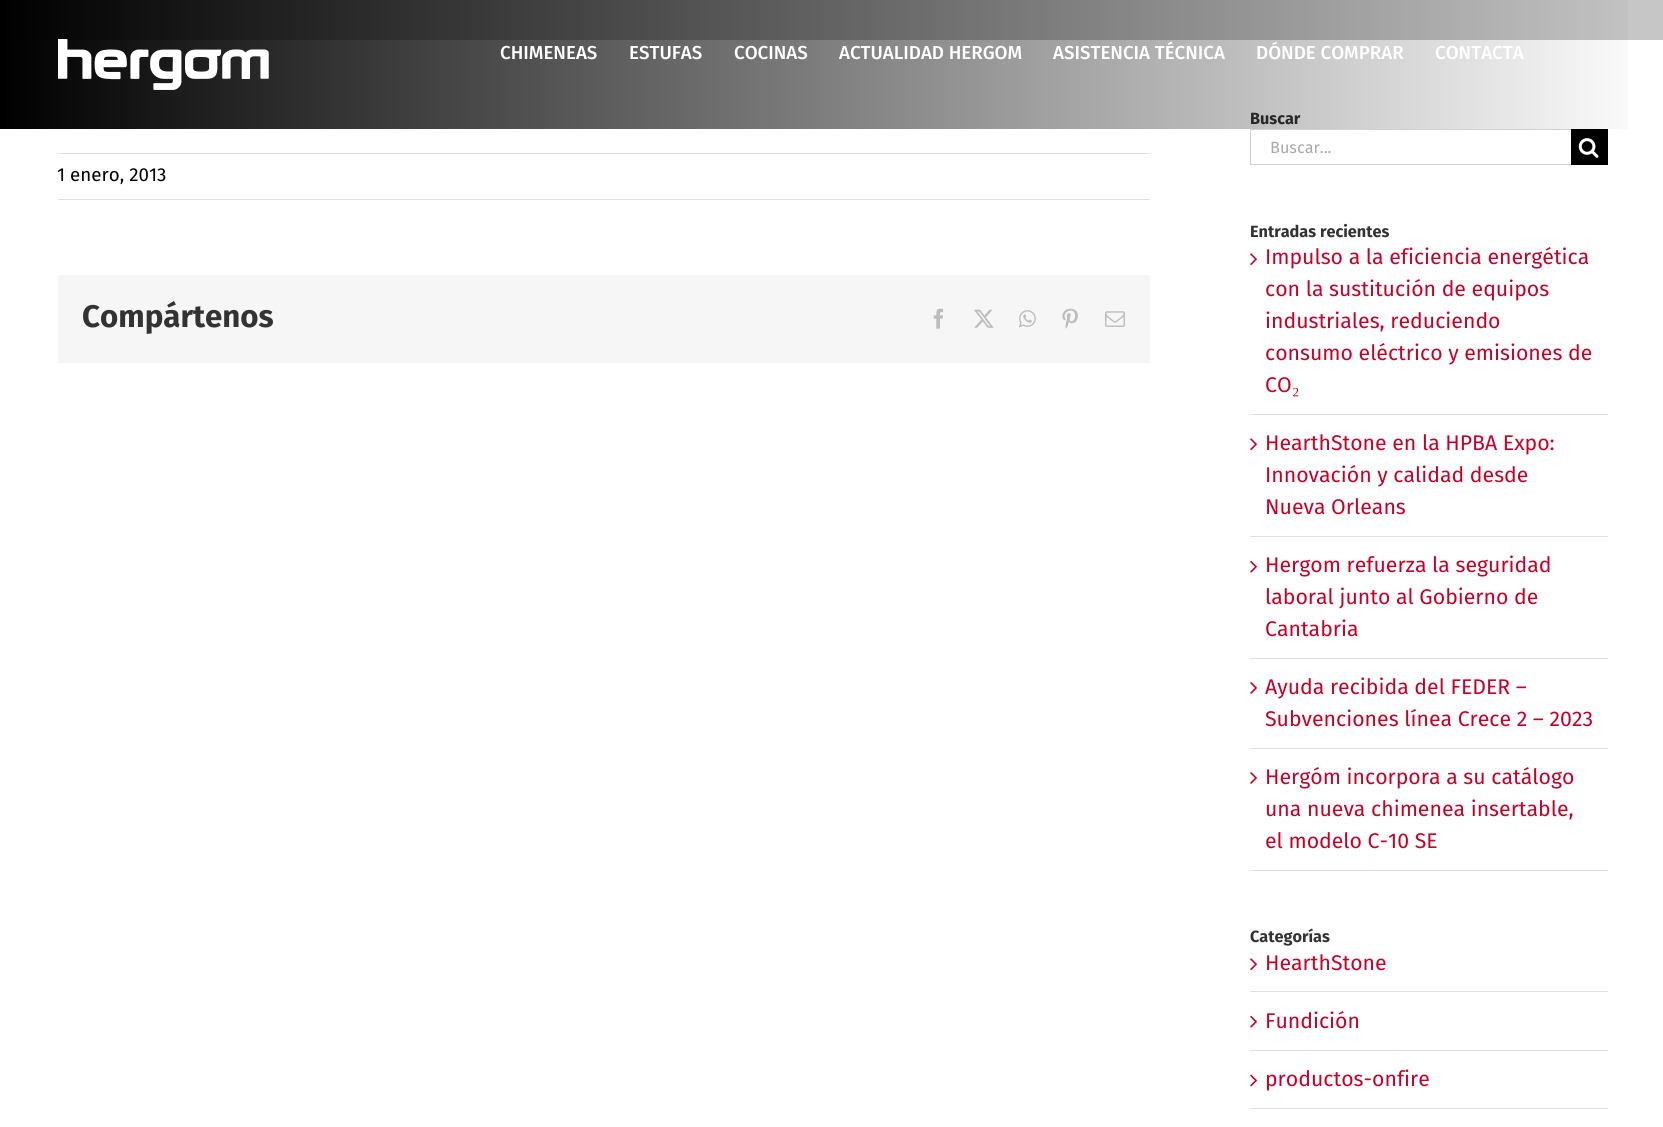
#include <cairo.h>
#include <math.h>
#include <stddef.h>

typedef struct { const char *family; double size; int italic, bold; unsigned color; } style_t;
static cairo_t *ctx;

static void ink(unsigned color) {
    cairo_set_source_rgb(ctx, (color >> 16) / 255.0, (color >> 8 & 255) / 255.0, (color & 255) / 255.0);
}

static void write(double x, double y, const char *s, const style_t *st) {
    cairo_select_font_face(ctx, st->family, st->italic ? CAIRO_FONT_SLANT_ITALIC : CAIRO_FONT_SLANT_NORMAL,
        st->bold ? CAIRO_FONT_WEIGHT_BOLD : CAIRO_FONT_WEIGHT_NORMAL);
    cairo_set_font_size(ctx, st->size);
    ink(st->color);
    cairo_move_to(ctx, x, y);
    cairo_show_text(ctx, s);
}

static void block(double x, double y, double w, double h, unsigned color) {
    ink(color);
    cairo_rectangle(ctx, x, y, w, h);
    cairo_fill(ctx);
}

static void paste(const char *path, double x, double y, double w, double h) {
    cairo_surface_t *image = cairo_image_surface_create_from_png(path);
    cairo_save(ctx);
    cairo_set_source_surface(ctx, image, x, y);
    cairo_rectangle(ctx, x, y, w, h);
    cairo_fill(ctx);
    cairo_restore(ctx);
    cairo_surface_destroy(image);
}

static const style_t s1 = {"Fira Sans", 16.25, 0, 1, 0x333333};
static const style_t s2 = {"Fira Sans Medium", 18.75, 0, 0, 0xffffff};
static const style_t s3 = {"Fira Sans", 18.75, 0, 0, 0x000000};
static const style_t s4 = {"Fira Sans", 31.25, 0, 1, 0x333333};
static const style_t s5 = {"Fira Sans", 16.25, 0, 0, 0xaaa9a9};
static const style_t s6 = {"Fira Sans", 21.25, 0, 0, 0xc70026};
static const style_t s7 = {"Liberation Serif", 21.25, 0, 0, 0xc70026};

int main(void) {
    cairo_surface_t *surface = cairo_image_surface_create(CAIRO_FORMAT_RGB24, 1663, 1127);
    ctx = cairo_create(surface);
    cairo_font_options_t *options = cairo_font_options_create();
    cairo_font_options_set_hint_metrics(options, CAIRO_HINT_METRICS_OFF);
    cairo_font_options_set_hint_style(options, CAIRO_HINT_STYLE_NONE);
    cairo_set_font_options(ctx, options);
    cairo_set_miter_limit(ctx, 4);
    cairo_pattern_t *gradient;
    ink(0xffffff);
    cairo_paint(ctx);
    block(10, 0, 1653, 40, 0xc6c6c6);
    write(1250, 124, "Buscar", &s1);
    gradient = cairo_pattern_create_linear(0, 64, 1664, 64);
    cairo_pattern_add_color_stop_rgba(gradient, 0, 0, 0, 0, 1);
    cairo_pattern_add_color_stop_rgba(gradient, 1, 0, 0, 0, 0);
    cairo_set_source(ctx, gradient);
    cairo_pattern_destroy(gradient);
    cairo_rectangle(ctx, 0, 0, 1628, 129);
    cairo_fill(ctx);
    paste("pic1.png", 58, 39, 211, 51);
    write(500, 59, "CHIMENEAS", &s2);
    write(629, 59, "ESTUFAS", &s2);
    write(734, 59, "COCINAS", &s2);
    write(839, 59, "ACTUALIDAD HERGOM", &s2);
    write(1053, 59, "ASISTENCIA TÉCNICA", &s2);
    write(1256, 59, "DÓNDE COMPRAR", &s2);
    write(1435, 59, "CONTACTA", &s2);
    block(58, 153, 1092, 1, 0xe0dede);
    block(58, 199, 1092, 1, 0xe0dede);
    write(57, 181, "1 enero, 2013", &s3);
    block(58, 275, 1092, 88, 0xf6f6f6);
    write(82, 327, "Compártenos", &s4);
    paste("pic2.png", 933, 308, 11, 21);
    paste("pic3.png", 974, 309, 20, 19);
    paste("pic4.png", 1019, 310, 17, 18);
    paste("pic5.png", 1062, 308, 16, 21);
    paste("pic6.png", 1105, 311, 20, 16);
    block(1250, 129, 321, 1, 0xd2d2d2);
    block(1250, 164, 321, 1, 0xd2d2d2);
    block(1250, 129, 1, 36, 0xd2d2d2);
    write(1270, 153, "Buscar...", &s5);
    block(1571, 129, 37, 36, 0x000000);
    paste("pic7.png", 1578, 138, 21, 20);
    write(1250, 237, "Entradas recientes", &s1);
    block(1250, 414, 358, 1, 0xe0dede);
    paste("pic8.png", 1250, 253, 7, 13);
    write(1265, 264, "Impulso a la eficiencia energética", &s6);
    write(1265, 296, "con la sustitución de equipos", &s6);
    write(1265, 328, "industriales, reduciendo", &s6);
    write(1265, 360, "consumo eléctrico y emisiones de", &s6);
    write(1265, 392, "CO", &s6);
    write(1292, 392, "₂", &s7);
    block(1250, 536, 358, 1, 0xe0dede);
    paste("pic8.png", 1250, 438, 7, 13);
    write(1265, 450, "HearthStone en la HPBA Expo:", &s6);
    write(1265, 482, "Innovación y calidad desde", &s6);
    write(1265, 514, "Nueva Orleans", &s6);
    block(1250, 658, 358, 1, 0xe0dede);
    paste("pic9.png", 1250, 560, 7, 13);
    write(1265, 572, "Hergom refuerza la seguridad", &s6);
    write(1265, 604, "laboral junto al Gobierno de", &s6);
    write(1265, 636, "Cantabria", &s6);
    block(1250, 748, 358, 1, 0xe0dede);
    paste("pic10.png", 1250, 682, 7, 12);
    write(1265, 694, "Ayuda recibida del FEDER –", &s6);
    write(1265, 726, "Subvenciones línea Crece 2 – 2023", &s6);
    block(1250, 870, 358, 1, 0xe0dede);
    paste("pic10.png", 1250, 772, 7, 12);
    write(1265, 784, "Hergóm incorpora a su catálogo", &s6);
    write(1265, 816, "una nueva chimenea insertable,", &s6);
    write(1265, 848, "el modelo C-10 SE", &s6);
    write(1250, 942, "Categorías", &s1);
    block(1250, 991, 358, 1, 0xe0dede);
    paste("pic8.png", 1250, 958, 7, 13);
    write(1265, 970, "HearthStone", &s6);
    block(1250, 1050, 358, 1, 0xe0dede);
    paste("pic9.png", 1250, 1015, 7, 13);
    write(1265, 1028, "Fundición", &s6);
    block(1250, 1108, 358, 1, 0xe0dede);
    paste("pic11.png", 1250, 1074, 7, 13);
    write(1265, 1086, "productos-onfire", &s6);
    cairo_surface_write_to_png(surface, "screenshot.png");
    cairo_font_options_destroy(options);
    cairo_destroy(ctx);
    cairo_surface_destroy(surface);
    return 0;
}
